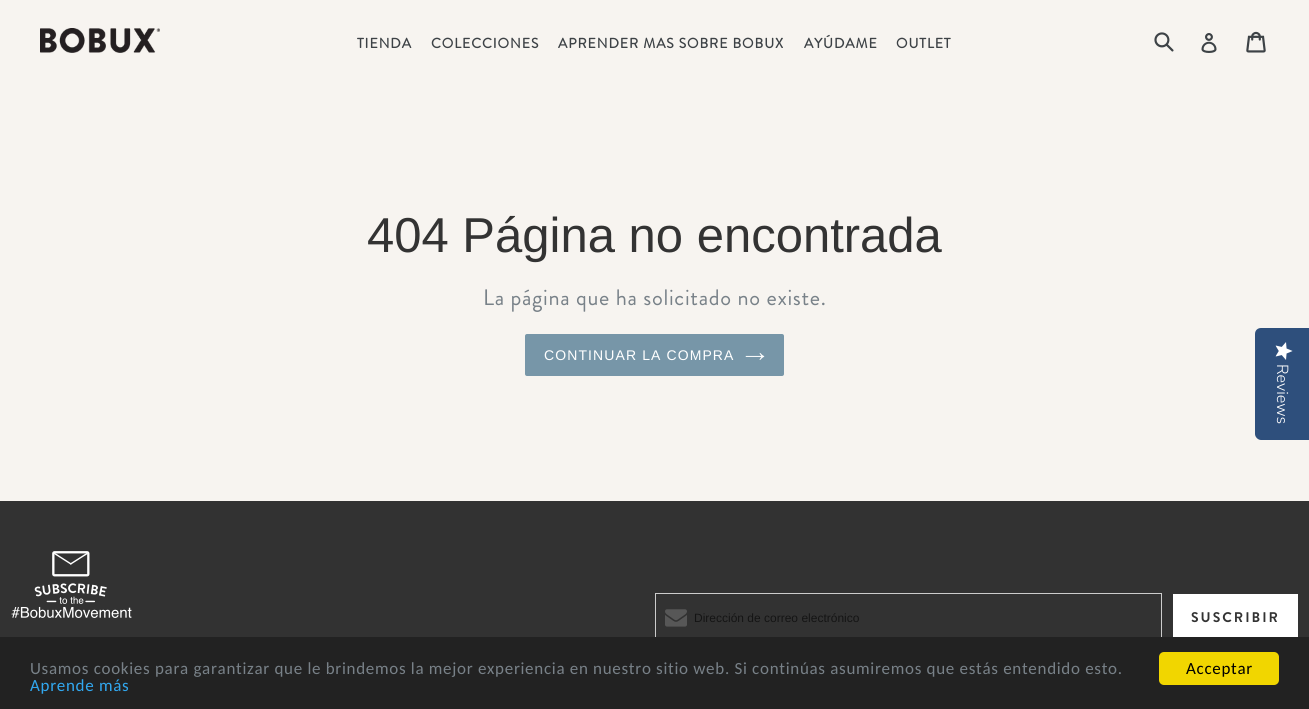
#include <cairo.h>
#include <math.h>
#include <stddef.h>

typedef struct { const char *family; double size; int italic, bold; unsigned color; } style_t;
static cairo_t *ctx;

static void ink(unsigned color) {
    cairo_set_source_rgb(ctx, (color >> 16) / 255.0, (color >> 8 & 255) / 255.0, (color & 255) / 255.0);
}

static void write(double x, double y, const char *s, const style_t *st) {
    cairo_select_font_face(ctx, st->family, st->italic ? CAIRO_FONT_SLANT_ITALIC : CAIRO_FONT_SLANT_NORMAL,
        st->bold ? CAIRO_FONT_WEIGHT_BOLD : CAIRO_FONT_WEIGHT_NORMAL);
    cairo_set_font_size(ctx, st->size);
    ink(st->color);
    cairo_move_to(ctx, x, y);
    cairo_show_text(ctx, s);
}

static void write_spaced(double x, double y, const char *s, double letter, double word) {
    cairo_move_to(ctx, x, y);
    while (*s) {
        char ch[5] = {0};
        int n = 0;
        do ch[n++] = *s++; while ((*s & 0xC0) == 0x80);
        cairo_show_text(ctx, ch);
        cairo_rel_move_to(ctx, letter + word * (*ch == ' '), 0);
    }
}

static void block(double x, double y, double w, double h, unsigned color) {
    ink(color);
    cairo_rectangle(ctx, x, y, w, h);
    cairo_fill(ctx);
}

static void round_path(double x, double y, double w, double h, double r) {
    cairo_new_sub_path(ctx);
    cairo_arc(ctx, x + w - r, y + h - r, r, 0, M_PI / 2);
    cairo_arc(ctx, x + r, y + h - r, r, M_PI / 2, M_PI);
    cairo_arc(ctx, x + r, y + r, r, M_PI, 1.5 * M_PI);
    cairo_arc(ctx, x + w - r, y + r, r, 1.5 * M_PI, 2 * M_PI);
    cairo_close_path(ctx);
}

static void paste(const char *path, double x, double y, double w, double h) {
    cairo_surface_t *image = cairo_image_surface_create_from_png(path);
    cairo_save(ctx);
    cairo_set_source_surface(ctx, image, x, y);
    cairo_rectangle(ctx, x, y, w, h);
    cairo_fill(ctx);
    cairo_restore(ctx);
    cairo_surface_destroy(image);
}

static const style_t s1 = {"Liberation Sans", 49, 0, 0, 0x333333};
static const style_t s2 = {"Liberation Sans", 12, 0, 0, 0x141414};
static const style_t s3 = {"Nunito Sans Light", 16, 0, 0, 0xffffff};

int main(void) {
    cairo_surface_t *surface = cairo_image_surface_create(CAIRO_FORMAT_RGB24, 1309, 709);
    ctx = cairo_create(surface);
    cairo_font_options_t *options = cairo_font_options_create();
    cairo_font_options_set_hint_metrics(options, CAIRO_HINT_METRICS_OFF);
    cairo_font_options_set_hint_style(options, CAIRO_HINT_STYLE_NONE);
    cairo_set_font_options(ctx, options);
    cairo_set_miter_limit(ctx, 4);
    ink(0xf7f4f0);
    cairo_paint(ctx);
    paste("pic1.png", 40, 28, 120, 25);
    cairo_select_font_face(ctx, "Brandon Grotesque", CAIRO_FONT_SLANT_NORMAL, CAIRO_FONT_WEIGHT_BOLD);
    cairo_set_font_size(ctx, 14);
    ink(0x3d4246);
    write_spaced(357, 48, "TIENDA", 0.9, 0);
    write_spaced(431, 48, "COLECCIONES", 0.9, 0);
    write_spaced(558, 48, "APRENDER MAS SOBRE BOBUX", 0.9, 0);
    write_spaced(804, 48, "AYÚDAME", 0.9, 0);
    write_spaced(896, 48, "OUTLET", 0.9, 0);
    paste("pic2.png", 1154, 32, 20, 20);
    paste("pic3.png", 1201, 33, 16, 20);
    paste("pic4.png", 1246, 31, 20, 22);
    write(367, 252, "404 Página no encontrada", &s1);
    cairo_select_font_face(ctx, "Brandon Grotesque", CAIRO_FONT_SLANT_NORMAL, CAIRO_FONT_WEIGHT_NORMAL);
    cairo_set_font_size(ctx, 22.4);
    ink(0x788188);
    write_spaced(483, 305, "La página que ha solicitado no existe.", 0.7, 0);
    ink(0x7796a8);
    round_path(525, 334, 259, 42, 2);
    cairo_fill(ctx);
    cairo_select_font_face(ctx, "Liberation Sans", CAIRO_FONT_SLANT_NORMAL, CAIRO_FONT_WEIGHT_NORMAL);
    cairo_set_font_size(ctx, 14);
    ink(0xffffff);
    write_spaced(544, 360, "CONTINUAR LA COMPRA", 1.1, 0);
    paste("pic5.png", 745, 352, 20, 8);
    block(0, 501, 1309, 136, 0x323232);
    paste("pic6.png", 11, 551, 121, 67);
    cairo_rectangle(ctx, 655.5, 593.5, 506, 49);
    ink(0xcccccc);
    cairo_set_line_width(ctx, 1);
    cairo_stroke(ctx);
    paste("pic7.png", 665, 609, 22, 18);
    write(694, 622, "Dirección de correo electrónico", &s2);
    block(1173, 594, 125, 43, 0xffffff);
    cairo_rectangle(ctx, 1172.5, 593.5, 126, 49);
    ink(0x333333);
    cairo_stroke(ctx);
    cairo_select_font_face(ctx, "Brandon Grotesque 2", CAIRO_FONT_SLANT_NORMAL, CAIRO_FONT_WEIGHT_BOLD);
    cairo_set_font_size(ctx, 14);
    write_spaced(1191, 622, "SUSCRIBIR", 2, 0);
    ink(0x2e4f7c);
    cairo_new_path(ctx);
    cairo_move_to(ctx, 1309, 328);
    cairo_line_to(ctx, 1309, 440);
    cairo_line_to(ctx, 1261, 440);
    cairo_curve_to(ctx, 1258, 440, 1255, 437, 1255, 434);
    cairo_line_to(ctx, 1255, 334);
    cairo_curve_to(ctx, 1255, 330, 1258, 328, 1261, 328);
    cairo_close_path(ctx);
    cairo_fill(ctx);
    paste("pic8.png", 1275, 342, 18, 18);
    cairo_save(ctx);
    cairo_translate(ctx, 1277, 364);
    cairo_rotate(ctx, 90 * M_PI / 180);
    write(0, 0, "Reviews", &s3);
    cairo_restore(ctx);
    block(0, 637, 1309, 72, 0x222222);
    cairo_select_font_face(ctx, "Carlito", CAIRO_FONT_SLANT_NORMAL, CAIRO_FONT_WEIGHT_NORMAL);
    cairo_set_font_size(ctx, 17);
    ink(0x788188);
    write_spaced(30, 674, "Usamos cookies para garantizar que le brindemos la mejor experiencia en nuestro sitio web. Si continúas asumiremos que estás entendido esto.", 0.7, 0);
    ink(0x31a8f0);
    write_spaced(30, 691, "Aprende más", 0.7, 0);
    ink(0xf1d600);
    round_path(1159, 652, 120, 33, 5);
    cairo_fill(ctx);
    ink(0x000000);
    write_spaced(1186, 674, "Acceptar", 0.7, 0);
    cairo_surface_write_to_png(surface, "screenshot.png");
    cairo_font_options_destroy(options);
    cairo_destroy(ctx);
    cairo_surface_destroy(surface);
    return 0;
}
